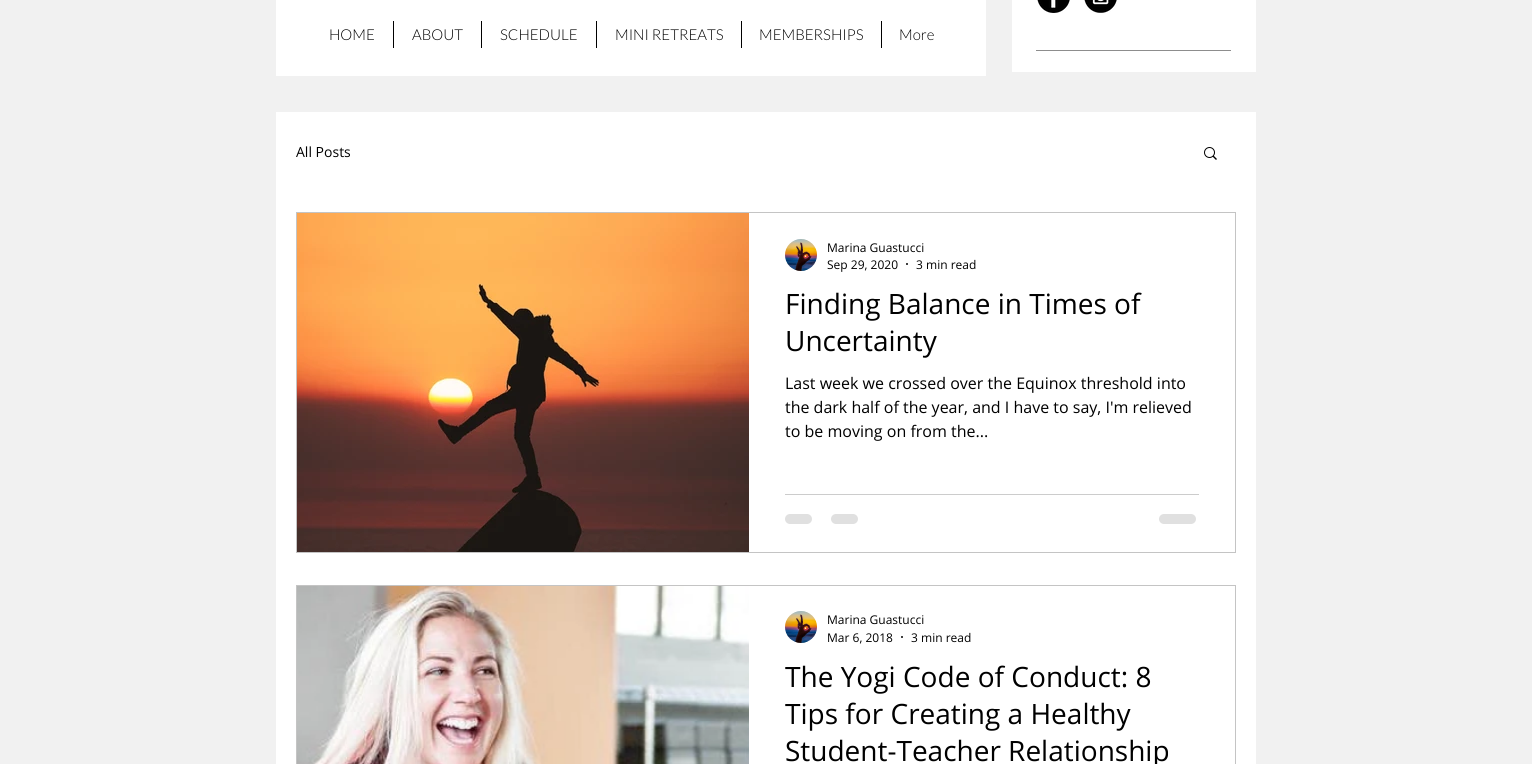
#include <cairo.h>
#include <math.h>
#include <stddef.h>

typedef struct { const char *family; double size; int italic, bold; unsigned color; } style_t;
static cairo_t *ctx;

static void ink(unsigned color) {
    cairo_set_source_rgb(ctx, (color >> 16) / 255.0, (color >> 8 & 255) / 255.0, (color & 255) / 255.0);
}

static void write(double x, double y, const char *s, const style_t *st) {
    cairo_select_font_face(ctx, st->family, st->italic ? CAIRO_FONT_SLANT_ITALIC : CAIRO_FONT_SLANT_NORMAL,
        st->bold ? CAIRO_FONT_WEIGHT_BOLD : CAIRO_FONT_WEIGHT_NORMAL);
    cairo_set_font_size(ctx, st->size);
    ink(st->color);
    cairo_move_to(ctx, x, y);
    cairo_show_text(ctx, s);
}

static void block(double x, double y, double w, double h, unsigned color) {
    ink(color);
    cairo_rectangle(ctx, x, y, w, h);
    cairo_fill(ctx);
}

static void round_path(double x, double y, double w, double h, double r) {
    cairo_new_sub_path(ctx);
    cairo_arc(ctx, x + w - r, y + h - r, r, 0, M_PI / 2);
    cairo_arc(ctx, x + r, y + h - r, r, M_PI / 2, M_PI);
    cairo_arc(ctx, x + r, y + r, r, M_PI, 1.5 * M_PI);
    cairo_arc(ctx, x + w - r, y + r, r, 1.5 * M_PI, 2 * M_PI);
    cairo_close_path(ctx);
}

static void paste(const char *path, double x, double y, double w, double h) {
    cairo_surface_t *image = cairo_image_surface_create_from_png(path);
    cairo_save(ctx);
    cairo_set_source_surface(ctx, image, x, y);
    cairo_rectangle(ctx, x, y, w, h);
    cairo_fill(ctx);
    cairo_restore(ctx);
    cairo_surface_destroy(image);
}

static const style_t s1 = {"Lato Light", 15, 0, 0, 0x000000};
static const style_t s2 = {"Open Sans", 14, 0, 0, 0x000000};
static const style_t s3 = {"Open Sans", 12, 0, 0, 0x000000};
static const style_t s4 = {"Open Sans", 28, 0, 0, 0x000000};
static const style_t s5 = {"Open Sans", 16, 0, 0, 0x000000};

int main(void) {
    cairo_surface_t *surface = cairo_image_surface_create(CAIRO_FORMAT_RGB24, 1532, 764);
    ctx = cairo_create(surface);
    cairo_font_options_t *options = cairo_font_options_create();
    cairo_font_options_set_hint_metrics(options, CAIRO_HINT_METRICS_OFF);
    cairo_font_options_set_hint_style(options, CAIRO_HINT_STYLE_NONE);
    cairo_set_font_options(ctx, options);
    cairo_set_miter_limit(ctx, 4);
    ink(0xf1f1f1);
    cairo_paint(ctx);
    block(276, 0, 710, 76, 0xffffff);
    write(329, 40, "HOME", &s1);
    block(393, 21, 1, 27, 0x000000);
    write(412, 40, "ABOUT", &s1);
    block(481, 21, 1, 27, 0x000000);
    write(500, 40, "SCHEDULE", &s1);
    block(596, 21, 1, 27, 0x000000);
    write(615, 40, "MINI RETREATS", &s1);
    block(741, 21, 1, 27, 0x000000);
    write(759, 40, "MEMBERSHIPS", &s1);
    block(881, 21, 1, 27, 0x000000);
    write(899, 40, "More", &s1);
    block(1012, 0, 244, 72, 0xffffff);
    paste("pic1.png", 1037, 0, 33, 13);
    paste("pic2.png", 1084, 0, 33, 13);
    block(1036, 50, 195, 1, 0x8d8d8d);
    block(276, 112, 980, 652, 0xffffff);
    write(296, 157, "All Posts", &s2);
    paste("pic3.png", 1204, 147, 13, 13);
    cairo_rectangle(ctx, 296.5, 212.5, 939, 340);
    ink(0xc4c4c4);
    cairo_set_line_width(ctx, 1);
    cairo_stroke(ctx);
    paste("pic4.png", 297, 213, 452, 339);
    paste("pic5.png", 785, 239, 32, 32);
    write(827, 252, "Marina Guastucci", &s3);
    write(827, 269, "Sep 29, 2020", &s3);
    cairo_new_path(ctx);
    cairo_arc(ctx, 907, 264, 1, 0, 2 * M_PI);
    cairo_fill(ctx);
    write(916, 269, "3 min read", &s3);
    write(785, 314, "Finding Balance in Times of", &s4);
    write(785, 351, "Uncertainty", &s4);
    write(785, 389, "Last week we crossed over the Equinox threshold into", &s5);
    write(785, 413, "the dark half of the year, and I have to say, I'm relieved", &s5);
    write(785, 437, "to be moving on from the...", &s5);
    block(785, 494, 414, 1, 0xcccccc);
    ink(0xe0e0e0);
    round_path(785, 514, 27, 10, 5);
    cairo_fill(ctx);
    round_path(831, 514, 27, 10, 5);
    cairo_fill(ctx);
    round_path(1159, 514, 37, 10, 5);
    cairo_fill(ctx);
    cairo_rectangle(ctx, 296.5, 585.5, 939, 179);
    ink(0xc4c4c4);
    cairo_stroke(ctx);
    paste("pic6.png", 297, 586, 452, 178);
    paste("pic5.png", 785, 611, 32, 32);
    write(827, 624, "Marina Guastucci", &s3);
    write(827, 642, "Mar 6, 2018", &s3);
    cairo_new_path(ctx);
    cairo_arc(ctx, 902, 637, 1, 0, 2 * M_PI);
    cairo_fill(ctx);
    write(911, 642, "3 min read", &s3);
    write(785, 687, "The Yogi Code of Conduct: 8", &s4);
    write(785, 724, "Tips for Creating a Healthy", &s4);
    write(785, 761, "Student-Teacher Relationship", &s4);
    cairo_surface_write_to_png(surface, "screenshot.png");
    cairo_font_options_destroy(options);
    cairo_destroy(ctx);
    cairo_surface_destroy(surface);
    return 0;
}
